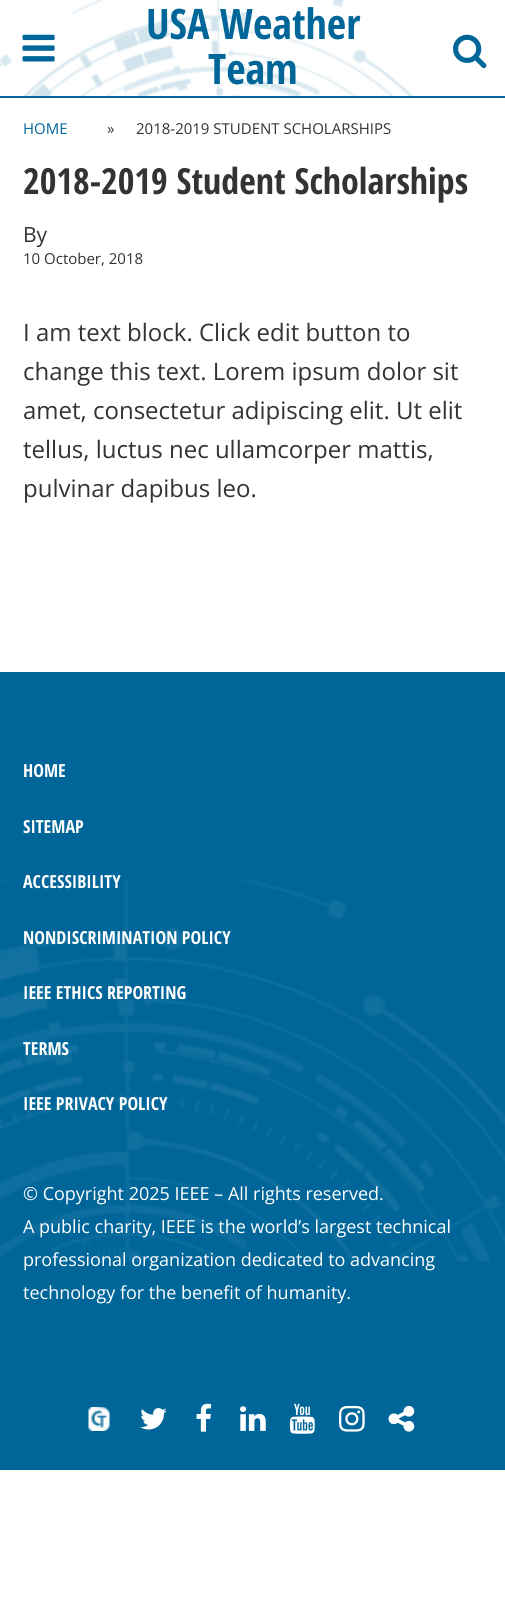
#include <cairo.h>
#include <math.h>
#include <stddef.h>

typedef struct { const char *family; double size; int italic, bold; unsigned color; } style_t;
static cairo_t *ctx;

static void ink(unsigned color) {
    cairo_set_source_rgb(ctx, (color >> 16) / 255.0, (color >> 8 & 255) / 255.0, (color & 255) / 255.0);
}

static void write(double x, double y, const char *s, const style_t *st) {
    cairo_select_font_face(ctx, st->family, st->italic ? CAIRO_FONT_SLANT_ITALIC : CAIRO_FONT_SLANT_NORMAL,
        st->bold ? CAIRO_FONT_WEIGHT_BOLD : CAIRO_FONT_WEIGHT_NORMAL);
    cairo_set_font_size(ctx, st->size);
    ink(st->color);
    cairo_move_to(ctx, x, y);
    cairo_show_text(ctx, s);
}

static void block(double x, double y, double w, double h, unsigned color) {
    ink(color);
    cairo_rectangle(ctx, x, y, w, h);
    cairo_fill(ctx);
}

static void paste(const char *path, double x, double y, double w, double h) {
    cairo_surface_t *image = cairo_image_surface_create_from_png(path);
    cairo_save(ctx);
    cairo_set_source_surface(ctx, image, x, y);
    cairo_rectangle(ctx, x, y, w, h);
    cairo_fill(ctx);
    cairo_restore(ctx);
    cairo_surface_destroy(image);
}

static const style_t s1 = {"Open Sans Condensed", 42, 0, 1, 0x006699};
static const style_t s2 = {"Open Sans", 15, 0, 0, 0x006699};
static const style_t s3 = {"Open Sans", 15, 0, 0, 0x333333};
static const style_t s4 = {"Open Sans Condensed", 36, 0, 1, 0x333333};
static const style_t s5 = {"Open Sans", 21, 0, 0, 0x333333};
static const style_t s6 = {"Open Sans", 24, 0, 0, 0x333333};
static const style_t s7 = {"Open Sans Condensed", 18, 0, 1, 0xffffff};
static const style_t s8 = {"Open Sans", 18, 0, 0, 0xffffff};

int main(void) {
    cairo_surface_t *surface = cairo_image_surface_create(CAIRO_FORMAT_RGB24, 505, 1620);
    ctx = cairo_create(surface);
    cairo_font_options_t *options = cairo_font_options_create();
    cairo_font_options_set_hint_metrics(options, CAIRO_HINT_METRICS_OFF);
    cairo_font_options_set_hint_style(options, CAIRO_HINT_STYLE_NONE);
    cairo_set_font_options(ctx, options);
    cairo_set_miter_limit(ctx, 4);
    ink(0xffffff);
    cairo_paint(ctx);
    paste("pic1.png", 0, 0, 413, 96);
    ink(0x006699);
    cairo_new_path(ctx);
    cairo_move_to(ctx, 0, 96);
    cairo_line_to(ctx, 0, 98);
    cairo_line_to(ctx, 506, 98);
    cairo_line_to(ctx, 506, 2);
    cairo_line_to(ctx, 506, 96);
    cairo_close_path(ctx);
    cairo_fill(ctx);
    paste("pic2.png", 22, 34, 33, 28);
    write(146, 39, "USA Weather", &s1);
    write(208, 84, "Team", &s1);
    paste("pic3.png", 453, 34, 34, 35);
    write(23, 134, "HOME", &s2);
    write(107, 134, "»", &s3);
    write(136, 134, "2018-2019 STUDENT SCHOLARSHIPS", &s3);
    write(23, 194, "2018-2019 Student Scholarships", &s4);
    write(23, 242, "By", &s5);
    write(23, 264, "10 October, 2018", &s3);
    write(23, 341, "I am text block. Click edit button to", &s6);
    write(23, 380, "change this text. Lorem ipsum dolor sit", &s6);
    write(23, 419, "amet, consectetur adipiscing elit. Ut elit", &s6);
    write(23, 458, "tellus, luctus nec ullamcorper mattis,", &s6);
    write(23, 497, "pulvinar dapibus leo.", &s6);
    block(0, 672, 505, 798, 0x006699);
    paste("pic4.png", 0, 880, 505, 382);
    write(23, 777, "HOME", &s7);
    write(23, 833, "SITEMAP", &s7);
    write(23, 888, "ACCESSIBILITY", &s7);
    write(23, 944, "NONDISCRIMINATION POLICY", &s7);
    write(23, 999, "IEEE ETHICS REPORTING", &s7);
    write(23, 1055, "TERMS", &s7);
    write(23, 1110, "IEEE PRIVACY POLICY", &s7);
    write(23, 1200, "© Copyright 2025 IEEE – All rights reserved.", &s8);
    write(23, 1233, "A public charity, IEEE is the world’s largest technical", &s8);
    write(23, 1266, "professional organization dedicated to advancing", &s8);
    write(23, 1299, "technology for the benefit of humanity.", &s8);
    paste("pic5.png", 88, 1407, 22, 24);
    paste("pic6.png", 140, 1408, 27, 22);
    paste("pic7.png", 196, 1403, 16, 29);
    paste("pic8.png", 240, 1406, 26, 25);
    paste("pic9.png", 289, 1403, 26, 31);
    paste("pic10.png", 339, 1405, 26, 27);
    paste("pic11.png", 388, 1405, 27, 27);
    cairo_surface_write_to_png(surface, "screenshot.png");
    cairo_font_options_destroy(options);
    cairo_destroy(ctx);
    cairo_surface_destroy(surface);
    return 0;
}
